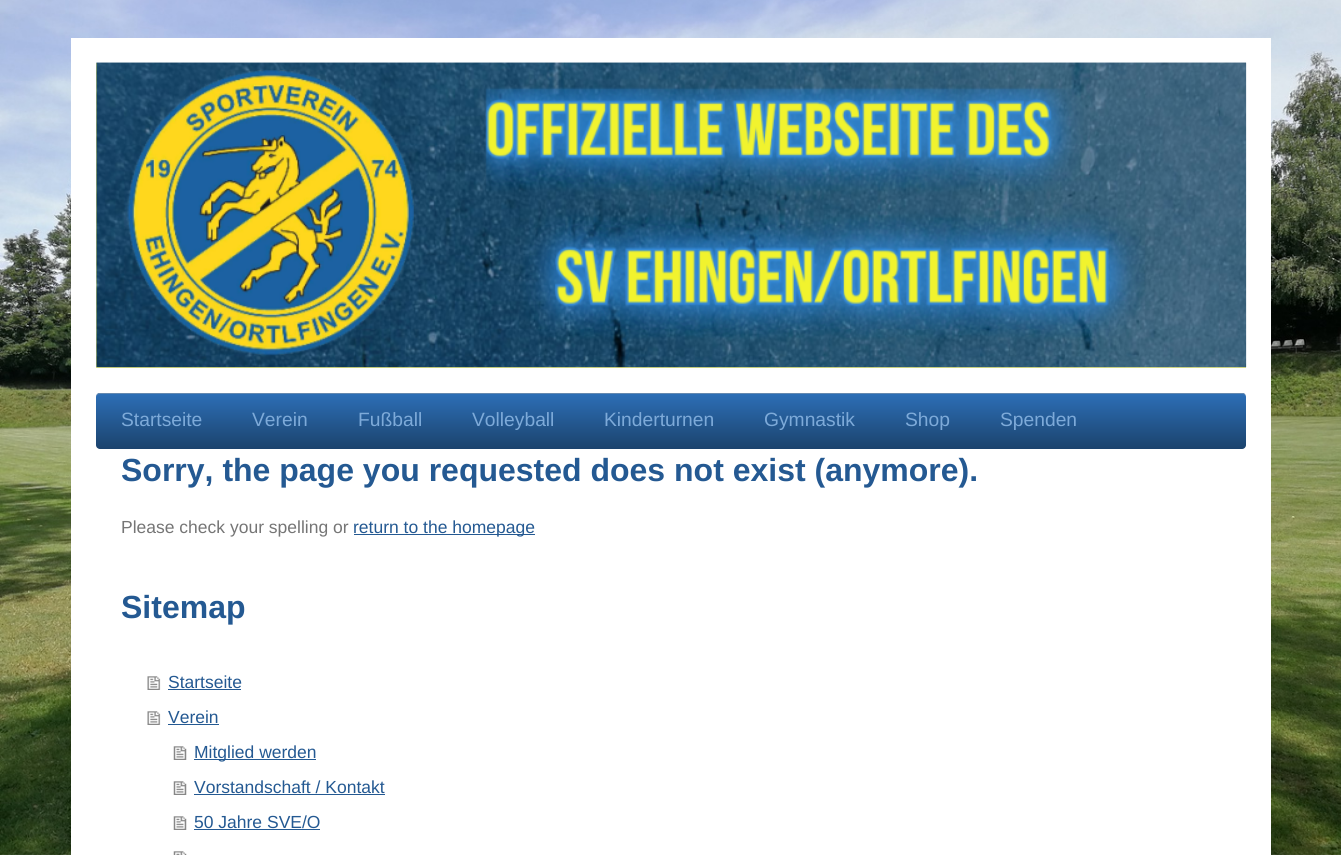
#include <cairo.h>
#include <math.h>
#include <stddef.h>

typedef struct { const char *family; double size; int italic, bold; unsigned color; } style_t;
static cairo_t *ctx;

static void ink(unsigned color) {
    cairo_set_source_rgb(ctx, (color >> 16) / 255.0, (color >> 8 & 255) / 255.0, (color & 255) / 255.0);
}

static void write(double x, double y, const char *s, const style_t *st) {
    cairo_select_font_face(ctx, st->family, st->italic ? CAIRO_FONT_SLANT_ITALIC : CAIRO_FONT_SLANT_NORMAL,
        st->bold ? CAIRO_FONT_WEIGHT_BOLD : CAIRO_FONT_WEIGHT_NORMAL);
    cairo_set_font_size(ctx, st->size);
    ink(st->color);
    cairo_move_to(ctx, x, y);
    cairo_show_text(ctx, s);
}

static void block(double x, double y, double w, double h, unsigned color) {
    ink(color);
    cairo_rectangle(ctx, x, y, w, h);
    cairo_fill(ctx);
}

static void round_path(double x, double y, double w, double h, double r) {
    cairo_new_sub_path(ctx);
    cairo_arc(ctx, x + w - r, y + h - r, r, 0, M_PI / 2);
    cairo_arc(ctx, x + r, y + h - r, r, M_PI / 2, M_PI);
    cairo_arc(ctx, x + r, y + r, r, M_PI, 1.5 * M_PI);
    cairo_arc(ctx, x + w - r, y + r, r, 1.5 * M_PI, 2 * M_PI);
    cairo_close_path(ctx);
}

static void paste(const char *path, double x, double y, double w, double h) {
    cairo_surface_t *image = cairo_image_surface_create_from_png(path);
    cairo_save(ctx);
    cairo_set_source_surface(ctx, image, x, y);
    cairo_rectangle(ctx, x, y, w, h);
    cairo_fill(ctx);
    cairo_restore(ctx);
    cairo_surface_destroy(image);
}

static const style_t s1 = {"Liberation Sans", 19.25, 0, 0, 0x7daad9};
static const style_t s2 = {"Liberation Sans", 32, 0, 1, 0x245992};
static const style_t s3 = {"Liberation Sans", 17.5, 0, 0, 0x757575};
static const style_t s4 = {"Liberation Sans", 17.5, 0, 0, 0x245992};

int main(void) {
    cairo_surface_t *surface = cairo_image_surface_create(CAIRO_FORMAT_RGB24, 1341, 855);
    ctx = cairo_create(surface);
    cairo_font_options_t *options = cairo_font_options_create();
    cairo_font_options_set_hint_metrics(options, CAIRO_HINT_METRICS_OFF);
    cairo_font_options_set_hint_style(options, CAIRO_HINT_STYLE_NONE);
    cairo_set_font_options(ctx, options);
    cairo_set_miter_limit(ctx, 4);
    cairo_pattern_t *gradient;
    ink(0xffffff);
    cairo_paint(ctx);
    paste("pic1.png", 0, 0, 1341, 855);
    block(71, 38, 1200, 817, 0xffffff);
    paste("pic2.png", 96, 62, 1151, 305);
    block(96, 63, 1150, 305, 0xf9f681);
    paste("pic3.png", 96, 62, 1151, 306);
    gradient = cairo_pattern_create_linear(96, 393, 96, 449);
    cairo_pattern_add_color_stop_rgba(gradient, 0, 0.176, 0.435, 0.718, 1);
    cairo_pattern_add_color_stop_rgba(gradient, 1, 0.106, 0.263, 0.427, 1);
    cairo_set_source(ctx, gradient);
    cairo_pattern_destroy(gradient);
    round_path(96, 393, 1150, 56, 4);
    cairo_fill(ctx);
    ink(0x23578e);
    cairo_new_path(ctx);
    cairo_move_to(ctx, 100, 394);
    cairo_line_to(ctx, 1242, 394);
    cairo_curve_to(ctx, 1245, 394, 1246, 395, 1246, 398);
    cairo_curve_to(ctx, 1246, 395, 1245, 393, 1242, 393);
    cairo_line_to(ctx, 100, 393);
    cairo_curve_to(ctx, 97, 393, 96, 395, 96, 398);
    cairo_curve_to(ctx, 96, 395, 98, 394, 100, 394);
    cairo_close_path(ctx);
    cairo_fill(ctx);
    cairo_set_source_rgba(ctx, 1, 1, 1, 0.3);
    cairo_new_path(ctx);
    cairo_move_to(ctx, 100, 394);
    cairo_line_to(ctx, 1242, 394);
    cairo_curve_to(ctx, 1245, 394, 1246, 395, 1246, 398);
    cairo_curve_to(ctx, 1246, 395, 1245, 393, 1242, 393);
    cairo_line_to(ctx, 100, 393);
    cairo_curve_to(ctx, 97, 393, 96, 395, 96, 398);
    cairo_curve_to(ctx, 96, 395, 98, 394, 100, 394);
    cairo_close_path(ctx);
    cairo_fill(ctx);
    write(121, 426, "Startseite", &s1);
    write(252, 426, "Verein", &s1);
    write(358, 426, "Fußball", &s1);
    write(472, 426, "Volleyball", &s1);
    write(604, 426, "Kinderturnen", &s1);
    write(764, 426, "Gymnastik", &s1);
    write(905, 426, "Shop", &s1);
    write(1000, 426, "Spenden", &s1);
    write(121, 481, "Sorry, the page you requested does not exist (anymore).", &s2);
    write(121, 533, "Please check your spelling or", &s3);
    block(354, 534, 181, 1, 0x245992);
    write(353, 533, "return to the homepage", &s4);
    write(121, 618, "Sitemap", &s2);
    paste("pic4.png", 147, 676, 14, 14);
    write(168, 688, "Startseite", &s4);
    block(168, 689, 73, 1, 0x245992);
    paste("pic4.png", 147, 711, 14, 14);
    write(168, 723, "Verein", &s4);
    block(168, 724, 51, 1, 0x245992);
    paste("pic5.png", 173, 746, 14, 14);
    block(194, 759, 122, 1, 0x245992);
    write(194, 758, "Mitglied werden", &s4);
    paste("pic6.png", 173, 781, 14, 14);
    write(194, 793, "Vorstandschaft / Kontakt", &s4);
    block(194, 794, 191, 1, 0x245992);
    paste("pic5.png", 173, 816, 14, 14);
    write(194, 828, "50 Jahre SVE/O", &s4);
    block(194, 829, 126, 1, 0x245992);
    paste("pic7.png", 173, 851, 14, 4);
    cairo_surface_write_to_png(surface, "screenshot.png");
    cairo_font_options_destroy(options);
    cairo_destroy(ctx);
    cairo_surface_destroy(surface);
    return 0;
}
